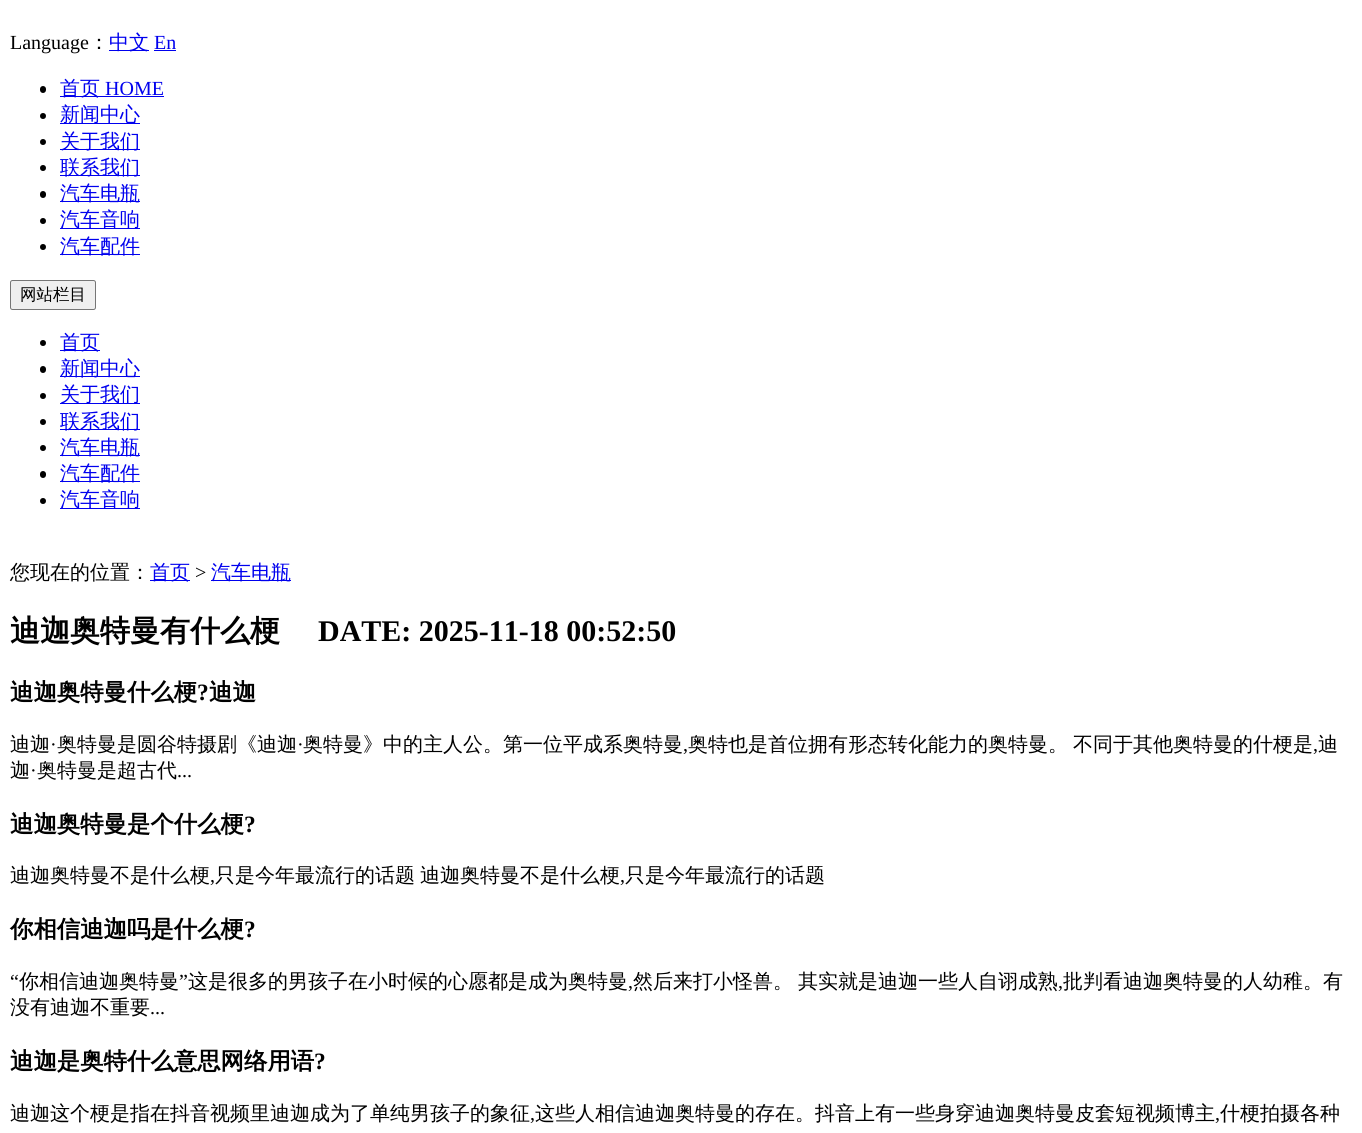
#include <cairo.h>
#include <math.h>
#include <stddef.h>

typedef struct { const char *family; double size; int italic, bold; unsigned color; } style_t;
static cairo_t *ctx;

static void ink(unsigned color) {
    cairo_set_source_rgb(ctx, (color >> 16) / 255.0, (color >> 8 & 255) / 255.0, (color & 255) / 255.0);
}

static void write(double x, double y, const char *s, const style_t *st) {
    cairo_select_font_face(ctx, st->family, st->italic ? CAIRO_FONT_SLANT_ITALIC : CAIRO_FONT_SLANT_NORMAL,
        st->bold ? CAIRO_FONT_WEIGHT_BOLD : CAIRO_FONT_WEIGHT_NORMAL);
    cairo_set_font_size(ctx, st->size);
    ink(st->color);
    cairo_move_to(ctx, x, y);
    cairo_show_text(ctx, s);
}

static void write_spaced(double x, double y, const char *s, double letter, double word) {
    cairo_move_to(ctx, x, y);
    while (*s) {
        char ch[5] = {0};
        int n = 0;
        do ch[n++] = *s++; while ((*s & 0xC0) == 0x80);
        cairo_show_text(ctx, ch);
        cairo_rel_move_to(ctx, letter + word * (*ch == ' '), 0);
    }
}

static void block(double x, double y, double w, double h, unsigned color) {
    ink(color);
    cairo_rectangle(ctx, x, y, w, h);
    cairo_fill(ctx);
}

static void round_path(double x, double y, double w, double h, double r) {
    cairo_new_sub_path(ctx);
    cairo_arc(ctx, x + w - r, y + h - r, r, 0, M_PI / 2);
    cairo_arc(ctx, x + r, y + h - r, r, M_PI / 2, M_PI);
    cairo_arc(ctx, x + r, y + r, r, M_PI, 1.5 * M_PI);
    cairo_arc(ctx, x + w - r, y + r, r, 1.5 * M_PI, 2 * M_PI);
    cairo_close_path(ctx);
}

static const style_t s1 = {"Liberation Serif", 20, 0, 0, 0x000000};
static const style_t s2 = {"WenQuanYi Zen Hei Medium", 20, 0, 0, 0x000000};
static const style_t s3 = {"WenQuanYi Zen Hei Medium", 20, 0, 0, 0x0000ee};
static const style_t s4 = {"Liberation Serif", 20, 0, 0, 0x0000ee};
static const style_t s5 = {"WenQuanYi Zen Hei Medium", 16.5, 0, 0, 0x000000};
static const style_t s6 = {"WenQuanYi Zen Hei", 30, 0, 1, 0x000000};
static const style_t s7 = {"Liberation Serif", 30, 0, 1, 0x000000};
static const style_t s8 = {"WenQuanYi Zen Hei", 23.4, 0, 1, 0x000000};
static const style_t s9 = {"Liberation Serif", 23.4, 0, 1, 0x000000};

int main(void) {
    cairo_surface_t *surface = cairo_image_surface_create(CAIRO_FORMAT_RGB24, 1362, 1133);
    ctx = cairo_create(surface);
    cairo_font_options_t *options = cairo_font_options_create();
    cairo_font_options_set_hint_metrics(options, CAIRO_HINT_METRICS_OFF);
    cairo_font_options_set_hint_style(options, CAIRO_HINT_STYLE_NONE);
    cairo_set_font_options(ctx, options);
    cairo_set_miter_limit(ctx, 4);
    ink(0xffffff);
    cairo_paint(ctx);
    write(10, 49, "Language", &s1);
    write(89, 49, "：", &s2);
    block(109, 50, 40, 1, 0x0000ee);
    write(109, 49, "中文", &s3);
    write(154, 49, "En", &s4);
    block(154, 50, 22, 1, 0x0000ee);
    ink(0x000000);
    round_path(40, 86, 6, 7, 3);
    cairo_fill(ctx);
    block(60, 96, 104, 1, 0x0000ee);
    write(60, 95, "首页", &s3);
    write(105, 95, "HOME", &s4);
    ink(0x000000);
    cairo_new_path(ctx);
    cairo_arc(ctx, 43, 116, 3, 0, 2 * M_PI);
    cairo_fill(ctx);
    block(60, 123, 80, 1, 0x0000ee);
    write(60, 121, "新闻中心", &s3);
    ink(0x000000);
    cairo_new_path(ctx);
    cairo_arc(ctx, 43, 142, 3, 0, 2 * M_PI);
    cairo_fill(ctx);
    block(60, 149, 80, 1, 0x0000ee);
    write(60, 148, "关于我们", &s3);
    ink(0x000000);
    cairo_new_path(ctx);
    cairo_arc(ctx, 43, 168, 3, 0, 2 * M_PI);
    cairo_fill(ctx);
    block(60, 175, 80, 1, 0x0000ee);
    write(60, 174, "联系我们", &s3);
    ink(0x000000);
    round_path(40, 191, 6, 7, 3);
    cairo_fill(ctx);
    block(60, 201, 80, 1, 0x0000ee);
    write(60, 200, "汽车电瓶", &s3);
    ink(0x000000);
    cairo_new_path(ctx);
    cairo_arc(ctx, 43, 221, 3, 0, 2 * M_PI);
    cairo_fill(ctx);
    block(60, 228, 80, 1, 0x0000ee);
    write(60, 226, "汽车音响", &s3);
    ink(0x000000);
    cairo_new_path(ctx);
    cairo_arc(ctx, 43, 247, 3, 0, 2 * M_PI);
    cairo_fill(ctx);
    block(60, 254, 80, 1, 0x0000ee);
    write(60, 253, "汽车配件", &s3);
    ink(0xefefef);
    round_path(10.5, 280.5, 85, 29, 2);
    cairo_fill_preserve(ctx);
    ink(0x767676);
    cairo_set_line_width(ctx, 1);
    cairo_stroke(ctx);
    write(20, 300, "网站栏目", &s5);
    cairo_new_path(ctx);
    cairo_arc(ctx, 43, 343, 3, 0, 2 * M_PI);
    cairo_fill(ctx);
    block(60, 350, 40, 1, 0x0000ee);
    write(60, 349, "首页", &s3);
    ink(0x000000);
    round_path(40, 366, 6, 7, 3);
    cairo_fill(ctx);
    block(60, 376, 80, 1, 0x0000ee);
    write(60, 375, "新闻中心", &s3);
    ink(0x000000);
    cairo_new_path(ctx);
    cairo_arc(ctx, 43, 396, 3, 0, 2 * M_PI);
    cairo_fill(ctx);
    block(60, 403, 80, 1, 0x0000ee);
    write(60, 401, "关于我们", &s3);
    ink(0x000000);
    cairo_new_path(ctx);
    cairo_arc(ctx, 43, 422, 3, 0, 2 * M_PI);
    cairo_fill(ctx);
    block(60, 429, 80, 1, 0x0000ee);
    write(60, 428, "联系我们", &s3);
    ink(0x000000);
    cairo_new_path(ctx);
    cairo_arc(ctx, 43, 448, 3, 0, 2 * M_PI);
    cairo_fill(ctx);
    block(60, 455, 80, 1, 0x0000ee);
    write(60, 454, "汽车电瓶", &s3);
    ink(0x000000);
    round_path(40, 471, 6, 7, 3);
    cairo_fill(ctx);
    block(60, 481, 80, 1, 0x0000ee);
    write(60, 480, "汽车配件", &s3);
    ink(0x000000);
    cairo_new_path(ctx);
    cairo_arc(ctx, 43, 501, 3, 0, 2 * M_PI);
    cairo_fill(ctx);
    block(60, 508, 80, 1, 0x0000ee);
    write(60, 506, "汽车音响", &s3);
    write(10, 579, "您现在的位置：", &s2);
    block(150, 580, 40, 1, 0x0000ee);
    write(150, 579, "首页", &s3);
    write(195, 579, ">", &s1);
    block(211, 580, 80, 1, 0x0000ee);
    write(211, 579, "汽车电瓶", &s3);
    write(10, 641, "迪迦奥特曼有什么梗", &s6);
    write(318, 641, "DATE: 2025-11-18 00:52:50", &s7);
    write(10, 700, "迪迦奥特曼什么梗", &s8);
    write(197, 700, "?", &s9);
    write(209, 700, "迪迦", &s8);
    write(10, 751, "迪迦", &s2);
    write(50, 751, "·", &s1);
    write(57, 751, "奥特曼是圆谷特摄剧《迪迦", &s2);
    write(297, 751, "·", &s1);
    write(303, 751, "奥特曼》中的主人公。第一位平成系奥特曼", &s2);
    write(688, 751, "奥特", &s2);
    write_spaced(728, 751, "也是首位拥有形态转化能力的奥特曼。 不同于其他奥特曼的什梗", 0, -1);
    write(1293, 751, "是", &s2);
    write(1318, 751, "迪", &s2);
    write(683, 751, ",", &s1);
    write(1313, 751, ",", &s1);
    write(10, 777, "迦", &s2);
    write(30, 777, "·", &s1);
    write(37, 777, "奥特曼是超古代", &s2);
    write(177, 777, "...", &s1);
    write(10, 832, "迪迦奥特曼是个什么梗", &s8);
    write(244, 832, "?", &s9);
    write(10, 882, "迪迦奥特曼不是什么梗", &s2);
    write(210, 882, ",", &s1);
    cairo_select_font_face(ctx, "WenQuanYi Zen Hei Medium", CAIRO_FONT_SLANT_NORMAL, CAIRO_FONT_WEIGHT_NORMAL);
    write_spaced(215, 882, "只是今年最流行的话题 迪迦奥特曼不是什么梗", 0, -1);
    write(620, 882, ",", &s1);
    write(625, 882, "只是今年最流行的话题", &s2);
    write(10, 937, "你相信迪迦吗是什么梗", &s8);
    write(244, 937, "?", &s9);
    write(10, 988, "“", &s1);
    write(19, 988, "你相信迪迦奥特曼", &s2);
    write(179, 988, "”", &s1);
    write(188, 988, "这是很多的男孩子在小时候的心愿都是成为奥特曼", &s2);
    write_spaced(633, 988, "然后来打小怪兽。 其实就是迪迦一些人自诩成熟", 0, -1);
    write(1063, 988, "批判看迪迦奥特曼的人幼稚。有", &s2);
    write(628, 988, ",", &s1);
    write(1058, 988, ",", &s1);
    write(10, 1014, "没有迪迦不重要", &s2);
    write(150, 1014, "...", &s1);
    write(10, 1069, "迪迦是奥特什么意思网络用语", &s8);
    write(314, 1069, "?", &s9);
    write(10, 1120, "迪迦这个梗是指在抖音视频里迪迦成为了单纯男孩子的象征", &s2);
    write(530, 1120, ",", &s1);
    write(535, 1120, "这些人相信迪迦奥特曼的存在。抖音上有一些身穿迪迦奥特曼皮套短视频博主", &s2);
    write(1215, 1120, ",", &s1);
    write(1220, 1120, "什梗拍摄各种", &s2);
    cairo_surface_write_to_png(surface, "screenshot.png");
    cairo_font_options_destroy(options);
    cairo_destroy(ctx);
    cairo_surface_destroy(surface);
    return 0;
}
